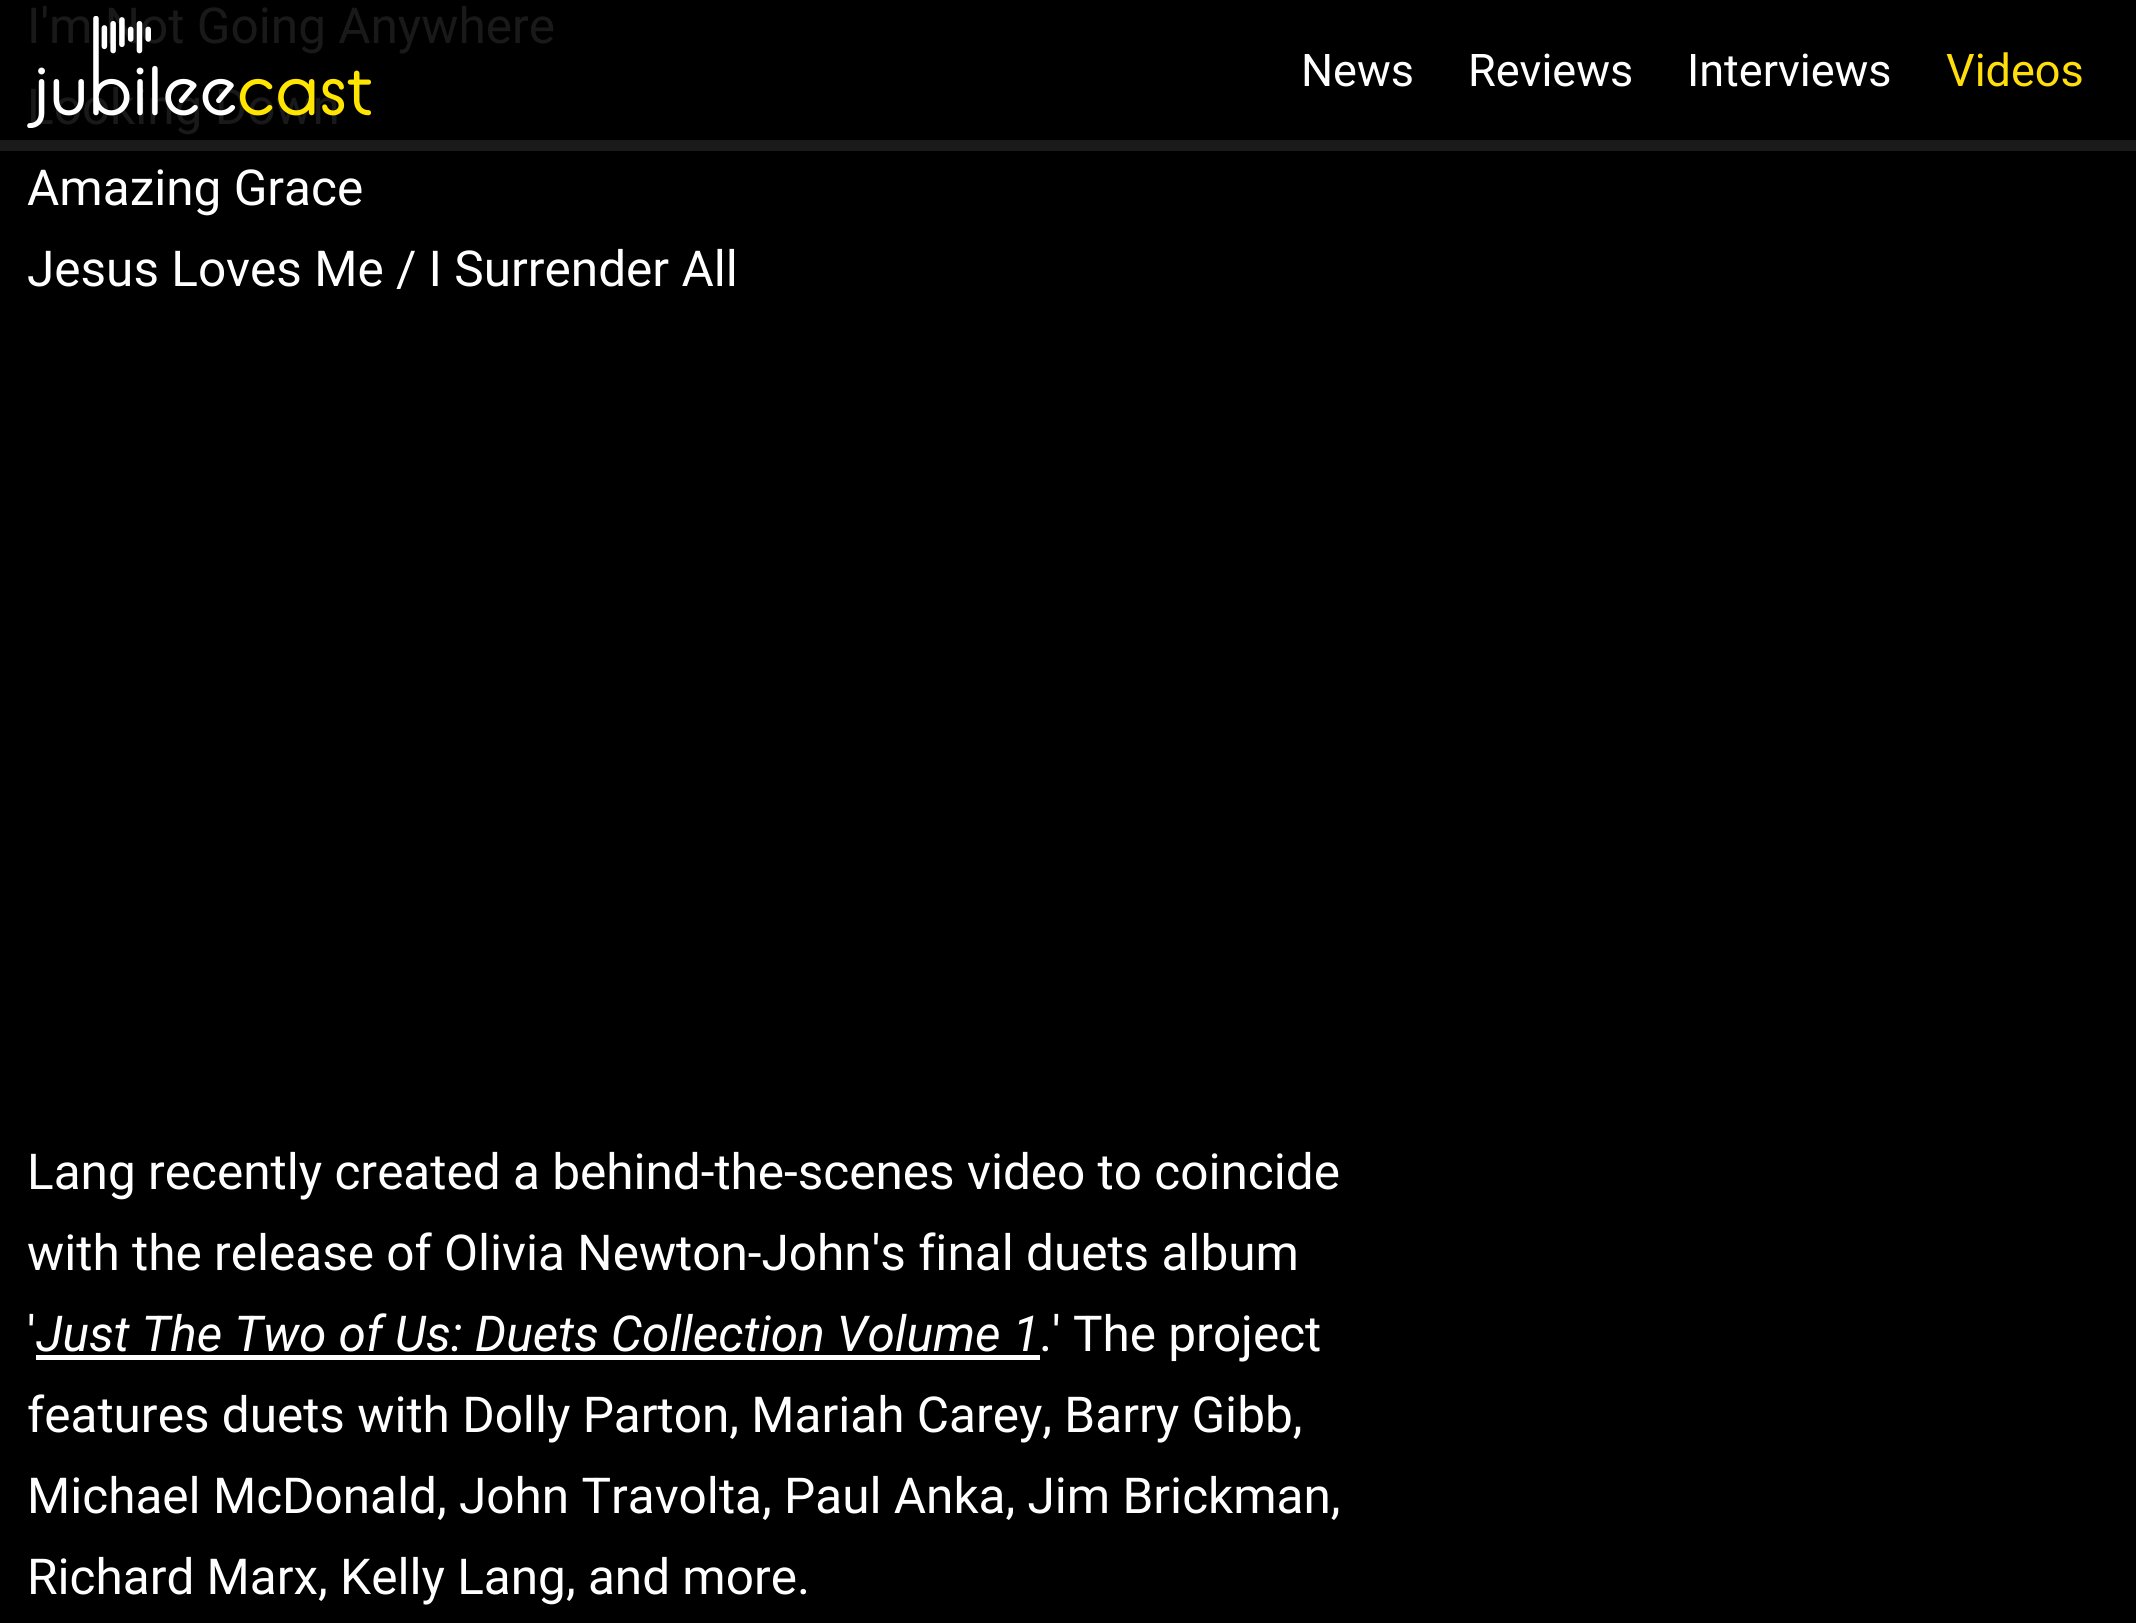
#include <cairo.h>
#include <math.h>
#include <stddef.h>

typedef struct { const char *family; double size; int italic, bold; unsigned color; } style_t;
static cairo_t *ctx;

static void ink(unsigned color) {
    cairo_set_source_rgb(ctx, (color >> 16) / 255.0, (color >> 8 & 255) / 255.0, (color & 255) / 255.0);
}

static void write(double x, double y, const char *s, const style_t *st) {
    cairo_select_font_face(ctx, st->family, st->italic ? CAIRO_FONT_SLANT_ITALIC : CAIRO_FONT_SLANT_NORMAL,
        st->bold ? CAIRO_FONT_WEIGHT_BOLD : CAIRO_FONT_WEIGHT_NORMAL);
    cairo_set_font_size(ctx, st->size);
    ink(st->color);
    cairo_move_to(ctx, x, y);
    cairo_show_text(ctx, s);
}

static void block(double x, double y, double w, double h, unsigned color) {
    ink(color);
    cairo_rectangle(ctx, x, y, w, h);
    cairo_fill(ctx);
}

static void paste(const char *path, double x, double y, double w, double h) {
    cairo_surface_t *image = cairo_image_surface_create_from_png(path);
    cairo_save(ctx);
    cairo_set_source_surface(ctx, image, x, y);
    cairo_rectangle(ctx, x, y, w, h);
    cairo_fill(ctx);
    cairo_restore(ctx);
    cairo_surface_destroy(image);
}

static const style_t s1 = {"Roboto", 49.5, 0, 0, 0x191919};
static const style_t s2 = {"Roboto", 49.5, 0, 0, 0xffffff};
static const style_t s3 = {"Roboto", 49.5, 1, 0, 0xffffff};
static const style_t s4 = {"Roboto", 45, 0, 0, 0xffffff};
static const style_t s5 = {"Roboto", 45, 0, 0, 0xffde0b};

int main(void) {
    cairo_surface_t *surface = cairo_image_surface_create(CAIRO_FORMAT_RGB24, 2136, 1623);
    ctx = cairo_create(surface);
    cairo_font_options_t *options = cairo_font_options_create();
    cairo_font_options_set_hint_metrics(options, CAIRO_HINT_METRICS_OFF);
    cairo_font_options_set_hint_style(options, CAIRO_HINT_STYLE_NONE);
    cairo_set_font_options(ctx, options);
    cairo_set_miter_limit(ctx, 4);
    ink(0x000000);
    cairo_paint(ctx);
    write(27, 43, "I'm Not Going Anywhere", &s1);
    write(27, 124, "Looking Down", &s1);
    write(27, 205, "Amazing Grace", &s2);
    write(27, 286, "Jesus Loves Me / I Surrender All", &s2);
    write(27, 1189, "Lang recently created a behind-the-scenes video to coincide", &s2);
    write(27, 1270, "with the release of Olivia Newton-John's final duets album", &s2);
    write(27, 1351, "'", &s2);
    write(36, 1351, "Just The Two of Us: Duets Collection Volume 1", &s3);
    block(36, 1355, 1004, 5, 0xffffff);
    write(1039, 1351, ".' The project", &s2);
    write(27, 1432, "features duets with Dolly Parton, Mariah Carey, Barry Gibb,", &s2);
    write(27, 1513, "Michael McDonald, John Travolta, Paul Anka, Jim Brickman,", &s2);
    write(27, 1594, "Richard Marx, Kelly Lang, and more.", &s2);
    block(0, 140, 2136, 11, 0x1a1a1a);
    paste("pic1.png", 27, 16, 344, 112);
    write(1301, 86, "News", &s4);
    write(1468, 86, "Reviews", &s4);
    write(1687, 86, "Interviews", &s4);
    write(1946, 86, "Videos", &s5);
    cairo_surface_write_to_png(surface, "screenshot.png");
    cairo_font_options_destroy(options);
    cairo_destroy(ctx);
    cairo_surface_destroy(surface);
    return 0;
}
